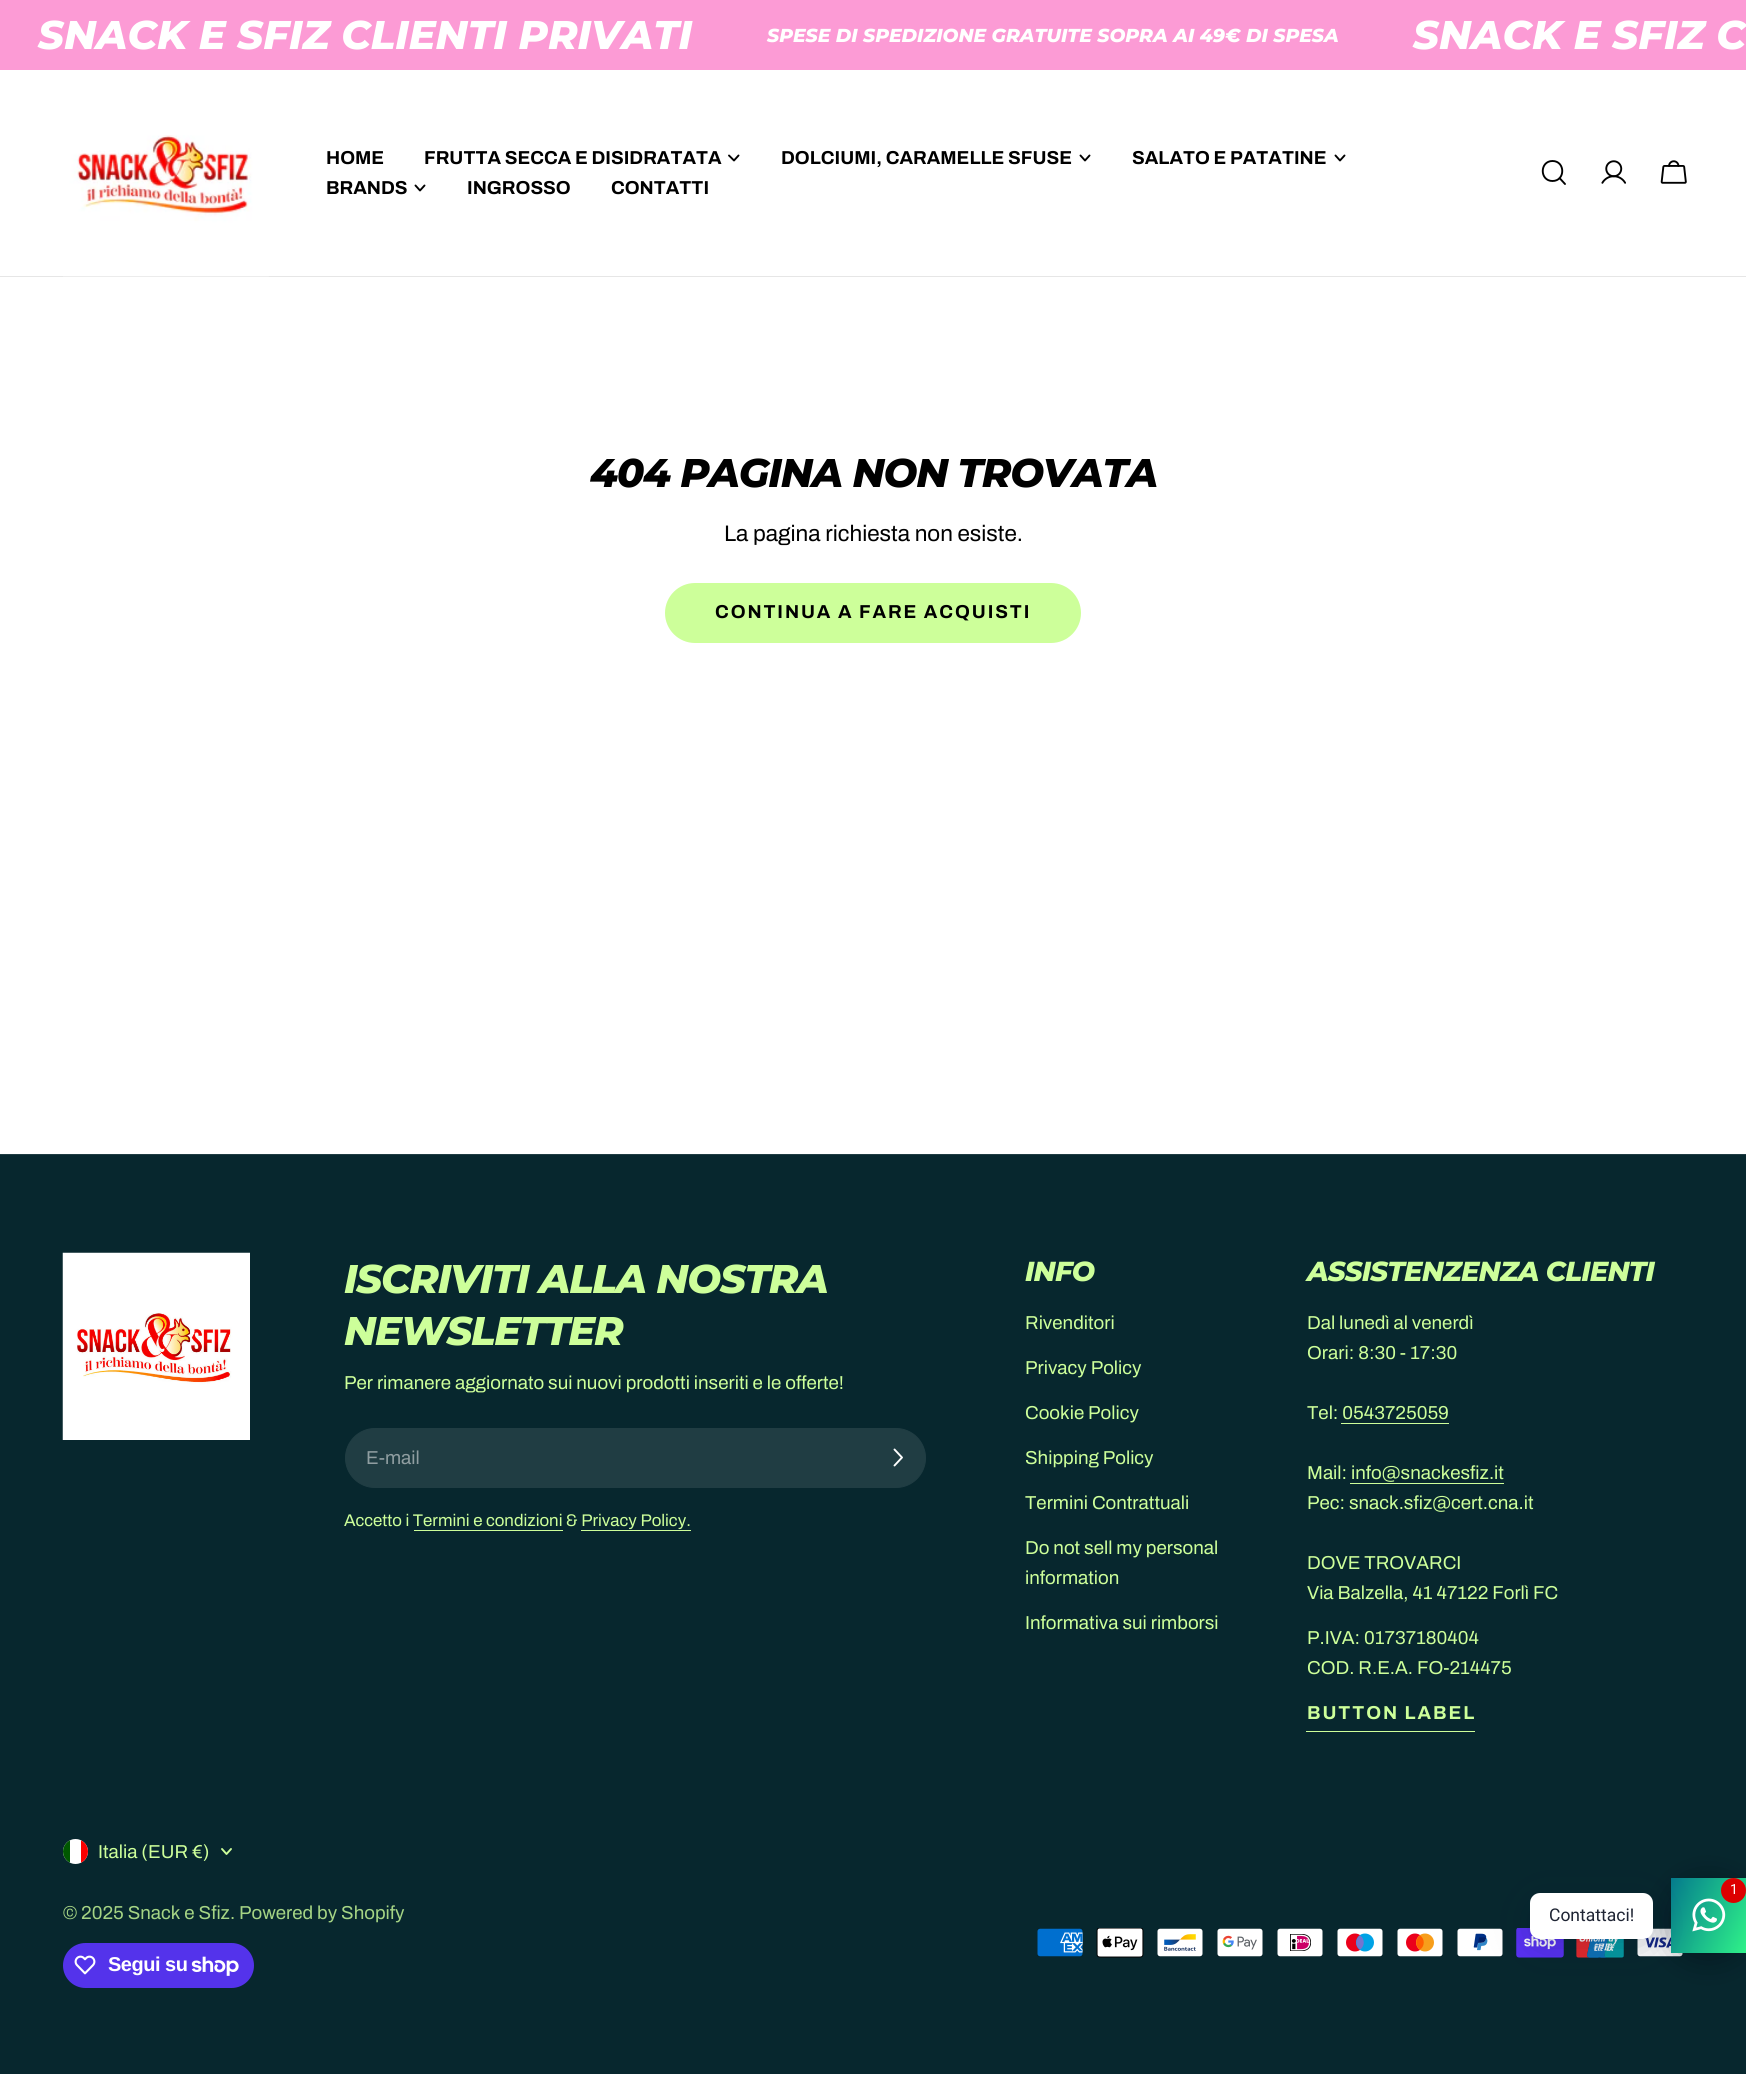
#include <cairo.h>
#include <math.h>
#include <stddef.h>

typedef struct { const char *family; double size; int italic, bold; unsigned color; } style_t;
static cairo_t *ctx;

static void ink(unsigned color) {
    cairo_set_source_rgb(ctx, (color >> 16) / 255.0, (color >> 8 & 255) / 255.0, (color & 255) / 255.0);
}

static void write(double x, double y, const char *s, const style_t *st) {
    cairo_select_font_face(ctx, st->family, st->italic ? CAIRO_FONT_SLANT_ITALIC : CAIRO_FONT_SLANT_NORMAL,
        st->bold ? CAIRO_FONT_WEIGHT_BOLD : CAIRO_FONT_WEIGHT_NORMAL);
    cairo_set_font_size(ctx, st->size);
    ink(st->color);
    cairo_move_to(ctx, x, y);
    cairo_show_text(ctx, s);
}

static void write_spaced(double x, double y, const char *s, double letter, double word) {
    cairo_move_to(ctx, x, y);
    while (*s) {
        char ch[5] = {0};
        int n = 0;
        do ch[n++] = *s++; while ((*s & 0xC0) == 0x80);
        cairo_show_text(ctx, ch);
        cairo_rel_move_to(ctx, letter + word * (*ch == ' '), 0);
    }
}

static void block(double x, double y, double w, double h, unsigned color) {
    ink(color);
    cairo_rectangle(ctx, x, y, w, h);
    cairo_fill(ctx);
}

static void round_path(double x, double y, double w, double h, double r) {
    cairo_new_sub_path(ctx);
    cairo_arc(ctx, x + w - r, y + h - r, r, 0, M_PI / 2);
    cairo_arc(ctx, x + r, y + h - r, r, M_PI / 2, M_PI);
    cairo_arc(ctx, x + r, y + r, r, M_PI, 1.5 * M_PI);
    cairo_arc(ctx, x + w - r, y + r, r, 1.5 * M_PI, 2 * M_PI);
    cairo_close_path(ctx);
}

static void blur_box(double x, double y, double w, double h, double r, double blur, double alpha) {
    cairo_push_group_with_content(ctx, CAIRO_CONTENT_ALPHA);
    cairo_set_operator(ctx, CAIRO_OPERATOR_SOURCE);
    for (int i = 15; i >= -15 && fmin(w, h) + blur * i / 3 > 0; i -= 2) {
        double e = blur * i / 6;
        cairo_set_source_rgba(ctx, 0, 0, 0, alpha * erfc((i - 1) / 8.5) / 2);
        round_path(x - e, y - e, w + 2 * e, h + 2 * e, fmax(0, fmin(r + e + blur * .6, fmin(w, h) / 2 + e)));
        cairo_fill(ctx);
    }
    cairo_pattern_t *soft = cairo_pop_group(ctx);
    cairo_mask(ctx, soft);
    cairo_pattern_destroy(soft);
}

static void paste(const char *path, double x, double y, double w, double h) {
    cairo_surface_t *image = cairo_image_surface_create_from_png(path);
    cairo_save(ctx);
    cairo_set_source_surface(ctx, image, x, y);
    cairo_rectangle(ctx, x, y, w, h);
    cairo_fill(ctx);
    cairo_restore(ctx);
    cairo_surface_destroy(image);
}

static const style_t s1 = {"Montserrat ExtraBold", 40, 1, 0, 0xffffff};
static const style_t s2 = {"Montserrat ExtraBold", 18.75, 1, 0, 0xffffff};
static const style_t s3 = {"Archivo", 18.75, 0, 1, 0x000000};
static const style_t s4 = {"Archivo", 22.5, 0, 0, 0x000000};
static const style_t s5 = {"Archivo", 18.75, 0, 0, 0xcdff9a};
static const style_t s6 = {"Archivo", 18.75, 0, 0, 0x909ea1};
static const style_t s7 = {"Archivo", 16.9, 0, 0, 0xcdff9a};
static const style_t s8 = {"Archivo", 18.75, 0, 0, 0xa5d484};
static const style_t s9 = {"Roboto", 14, 0, 0, 0xffffff};
static const style_t s10 = {"Roboto", 17.5, 0, 0, 0x1e2433};

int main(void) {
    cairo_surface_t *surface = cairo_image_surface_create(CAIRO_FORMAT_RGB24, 1746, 2074);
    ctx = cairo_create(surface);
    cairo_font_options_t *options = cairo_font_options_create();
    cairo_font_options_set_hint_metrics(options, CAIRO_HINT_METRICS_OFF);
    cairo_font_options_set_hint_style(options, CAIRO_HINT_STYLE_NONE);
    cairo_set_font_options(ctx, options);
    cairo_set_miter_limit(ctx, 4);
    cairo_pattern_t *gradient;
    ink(0xffffff);
    cairo_paint(ctx);
    block(0, 0, 1746, 70, 0xfc9bd5);
    write(38, 49, "SNACK E SFIZ CLIENTI PRIVATI", &s1);
    write(767, 42, "SPESE DI SPEDIZIONE GRATUITE SOPRA AI 49€ DI SPESA", &s2);
    write(1413, 49, "SNACK E SFIZ C", &s1);
    block(0, 276, 1746, 1, 0xe6e6e6);
    paste("pic1.png", 63, 135, 206, 142);
    write(326, 164, "HOME", &s3);
    write(424, 164, "FRUTTA SECCA E DISIDRATATA", &s3);
    cairo_new_path(ctx);
    cairo_move_to(ctx, 738.5, 155.5);
    cairo_line_to(ctx, 734, 160.5);
    cairo_line_to(ctx, 729, 155.5);
    cairo_set_line_width(ctx, 1.9);
    cairo_set_line_cap(ctx, CAIRO_LINE_CAP_ROUND);
    cairo_set_line_join(ctx, CAIRO_LINE_JOIN_ROUND);
    cairo_stroke(ctx);
    write(781, 164, "DOLCIUMI, CARAMELLE SFUSE", &s3);
    cairo_new_path(ctx);
    cairo_move_to(ctx, 1089.5, 155.5);
    cairo_line_to(ctx, 1085, 160.5);
    cairo_line_to(ctx, 1080.5, 155.5);
    cairo_stroke(ctx);
    write(1132, 164, "SALATO E PATATINE", &s3);
    cairo_new_path(ctx);
    cairo_move_to(ctx, 1344.5, 155.5);
    cairo_line_to(ctx, 1340, 160.5);
    cairo_line_to(ctx, 1335.5, 155.5);
    cairo_stroke(ctx);
    write(326, 194, "BRANDS", &s3);
    cairo_new_path(ctx);
    cairo_move_to(ctx, 424.5, 185.5);
    cairo_line_to(ctx, 420, 190.5);
    cairo_line_to(ctx, 415.5, 185.5);
    cairo_stroke(ctx);
    write(467, 194, "INGROSSO", &s3);
    write(611, 194, "CONTATTI", &s3);
    cairo_new_path(ctx);
    cairo_move_to(ctx, 1552.5, 181);
    cairo_curve_to(ctx, 1565.5, 181, 1565.5, 161, 1552.5, 161);
    cairo_curve_to(ctx, 1539.5, 161, 1539.5, 181, 1552.5, 181);
    cairo_close_path(ctx);
    cairo_move_to(ctx, 1559.5, 178);
    cairo_line_to(ctx, 1565, 184);
    cairo_stroke(ctx);
    paste("pic2.png", 1601, 160, 25, 24);
    paste("pic3.png", 1660, 160, 27, 24);
    cairo_select_font_face(ctx, "Montserrat ExtraBold", CAIRO_FONT_SLANT_ITALIC, CAIRO_FONT_WEIGHT_NORMAL);
    cairo_set_font_size(ctx, 40);
    write_spaced(590, 487, "404 PAGINA NON TROVATA", -1.2, 0);
    write(724, 541, "La pagina richiesta non esiste.", &s4);
    ink(0xcdff9a);
    round_path(665, 583, 416, 60, 30);
    cairo_fill(ctx);
    cairo_select_font_face(ctx, "Archivo", CAIRO_FONT_SLANT_NORMAL, CAIRO_FONT_WEIGHT_BOLD);
    cairo_set_font_size(ctx, 18.75);
    ink(0x000000);
    write_spaced(715, 618, "CONTINUA A FARE ACQUISTI", 1.9, 0);
    block(0, 1155, 1746, 919, 0x07272e);
    block(0, 1154, 1746, 1, 0x203d43);
    paste("pic4.png", 62, 1252, 188, 188);
    cairo_select_font_face(ctx, "Montserrat ExtraBold", CAIRO_FONT_SLANT_ITALIC, CAIRO_FONT_WEIGHT_NORMAL);
    cairo_set_font_size(ctx, 40);
    ink(0xcdff9a);
    write_spaced(344, 1293, "ISCRIVITI ALLA NOSTRA", -1.2, 0);
    write_spaced(344, 1345, "NEWSLETTER", -1.2, 0);
    write(344, 1389, "Per rimanere aggiornato sui nuovi prodotti inseriti e le offerte!", &s5);
    ink(0x203d43);
    round_path(345.5, 1428.5, 580, 59, 29.5);
    cairo_fill_preserve(ctx);
    cairo_set_line_width(ctx, 1);
    cairo_set_line_cap(ctx, CAIRO_LINE_CAP_BUTT);
    cairo_set_line_join(ctx, CAIRO_LINE_JOIN_MITER);
    cairo_stroke(ctx);
    write(366, 1464, "E-mail", &s6);
    cairo_new_path(ctx);
    cairo_move_to(ctx, 894.5, 1449.5);
    cairo_line_to(ctx, 902, 1457.5);
    cairo_line_to(ctx, 894.5, 1465.5);
    ink(0xffffff);
    cairo_set_line_width(ctx, 1.9);
    cairo_set_line_cap(ctx, CAIRO_LINE_CAP_ROUND);
    cairo_set_line_join(ctx, CAIRO_LINE_JOIN_ROUND);
    cairo_stroke(ctx);
    write(344, 1526, "Accetto i Termini e condizioni & Privacy Policy.", &s7);
    block(414, 1530, 149, 1, 0xcdff9a);
    block(581, 1530, 110, 1, 0xcdff9a);
    cairo_select_font_face(ctx, "Montserrat ExtraBold", CAIRO_FONT_SLANT_ITALIC, CAIRO_FONT_WEIGHT_NORMAL);
    cairo_set_font_size(ctx, 27.5);
    write_spaced(1025, 1281, "INFO", -0.8, 0);
    write(1025, 1329, "Rivenditori", &s5);
    write(1025, 1374, "Privacy Policy", &s5);
    write(1025, 1419, "Cookie Policy", &s5);
    write(1025, 1464, "Shipping Policy", &s5);
    write(1025, 1509, "Termini Contrattuali", &s5);
    write(1025, 1554, "Do not sell my personal", &s5);
    write(1025, 1584, "information", &s5);
    write(1025, 1629, "Informativa sui rimborsi", &s5);
    cairo_select_font_face(ctx, "Montserrat ExtraBold", CAIRO_FONT_SLANT_ITALIC, CAIRO_FONT_WEIGHT_NORMAL);
    cairo_set_font_size(ctx, 27.5);
    write_spaced(1307, 1281, "ASSISTENZENZA CLIENTI", -0.8, 0);
    write(1307, 1329, "Dal lunedì al venerdì", &s5);
    write(1307, 1359, "Orari: 8:30 - 17:30", &s5);
    write(1307, 1419, "Tel: 0543725059", &s5);
    block(1341, 1423, 108, 1, 0xcdff9a);
    write(1307, 1479, "Mail: info@snackesfiz.it", &s5);
    block(1350, 1483, 154, 1, 0xcdff9a);
    write(1307, 1509, "Pec: snack.sfiz@cert.cna.it", &s5);
    write(1307, 1569, "DOVE TROVARCI", &s5);
    write(1307, 1599, "Via Balzella, 41 47122 Forlì FC", &s5);
    write(1307, 1644, "P.IVA: 01737180404", &s5);
    write(1307, 1674, "COD. R.E.A. FO-214475", &s5);
    cairo_select_font_face(ctx, "Archivo", CAIRO_FONT_SLANT_NORMAL, CAIRO_FONT_WEIGHT_BOLD);
    write_spaced(1307, 1719, "BUTTON LABEL", 1.9, 0);
    block(1306, 1731, 169, 1, 0xcdff9a);
    ink(0xffffff);
    cairo_new_path(ctx);
    cairo_arc(ctx, 75.5, 1851.5, 12.5, 0, 2 * M_PI);
    cairo_fill(ctx);
    cairo_save(ctx);
    round_path(63, 1839, 25, 25, 12.5);
    cairo_clip(ctx);
    block(63, 1839, 7, 25, 0x005700);
    block(81, 1839, 7, 25, 0xfc0000);
    cairo_restore(ctx);
    write(98, 1858, "Italia (EUR €)", &s5);
    cairo_new_path(ctx);
    cairo_move_to(ctx, 231, 1849);
    cairo_line_to(ctx, 226.5, 1854);
    cairo_line_to(ctx, 222, 1849);
    cairo_stroke(ctx);
    write(63, 1919, "© 2025 Snack e Sfiz. Powered by Shopify", &s8);
    ink(0x5433eb);
    round_path(63, 1943, 191, 45, 22.5);
    cairo_fill(ctx);
    paste("pic5.png", 74, 1955, 22, 20);
    cairo_select_font_face(ctx, "Liberation Sans", CAIRO_FONT_SLANT_NORMAL, CAIRO_FONT_WEIGHT_BOLD);
    cairo_set_font_size(ctx, 20);
    ink(0xffffff);
    write_spaced(108, 1971, "Segui su", -0.5, 0);
    paste("pic6.png", 191, 1956, 48, 20);
    paste("pic7.png", 1037, 1928, 46, 29);
    paste("pic8.png", 1096, 1928, 48, 30);
    paste("pic9.png", 1157, 1928, 46, 29);
    paste("pic10.png", 1217, 1928, 46, 29);
    paste("pic11.png", 1277, 1928, 46, 29);
    paste("pic12.png", 1337, 1928, 46, 29);
    paste("pic13.png", 1397, 1928, 46, 29);
    paste("pic14.png", 1457, 1928, 46, 29);
    paste("pic15.png", 1516, 1928, 48, 30);
    paste("pic16.png", 1576, 1939, 48, 19);
    paste("pic17.png", 1637, 1928, 46, 29);
    ink(0x020610);
    blur_box(1671, 1883, 75, 75, 37.5, 15, 0.5);
    gradient = cairo_pattern_create_linear(1664, 1894, 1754, 1936);
    cairo_pattern_add_color_stop_rgba(gradient, 0, 0.016, 0.486, 0.553, 1);
    cairo_pattern_add_color_stop_rgba(gradient, 1, 0.184, 0.949, 0.537, 1);
    cairo_set_source(ctx, gradient);
    cairo_pattern_destroy(gradient);
    cairo_rectangle(ctx, 1671, 1878, 75, 75);
    cairo_fill(ctx);
    ink(0x00122e);
    blur_box(1530, 1900, 123, 46, 10, 20, 0.24);
    paste("pic18.png", 1692, 1898, 34, 34);
    ink(0xdd0000);
    cairo_arc(ctx, 1733.5, 1890.5, 12.5, 0, 2 * M_PI);
    cairo_fill(ctx);
    write(1730, 1894, "1", &s9);
    round_path(1530, 1893, 123, 46, 10);
    cairo_fill(ctx);
    write(1549, 1921, "Contattaci!", &s10);
    cairo_surface_write_to_png(surface, "screenshot.png");
    cairo_font_options_destroy(options);
    cairo_destroy(ctx);
    cairo_surface_destroy(surface);
    return 0;
}
